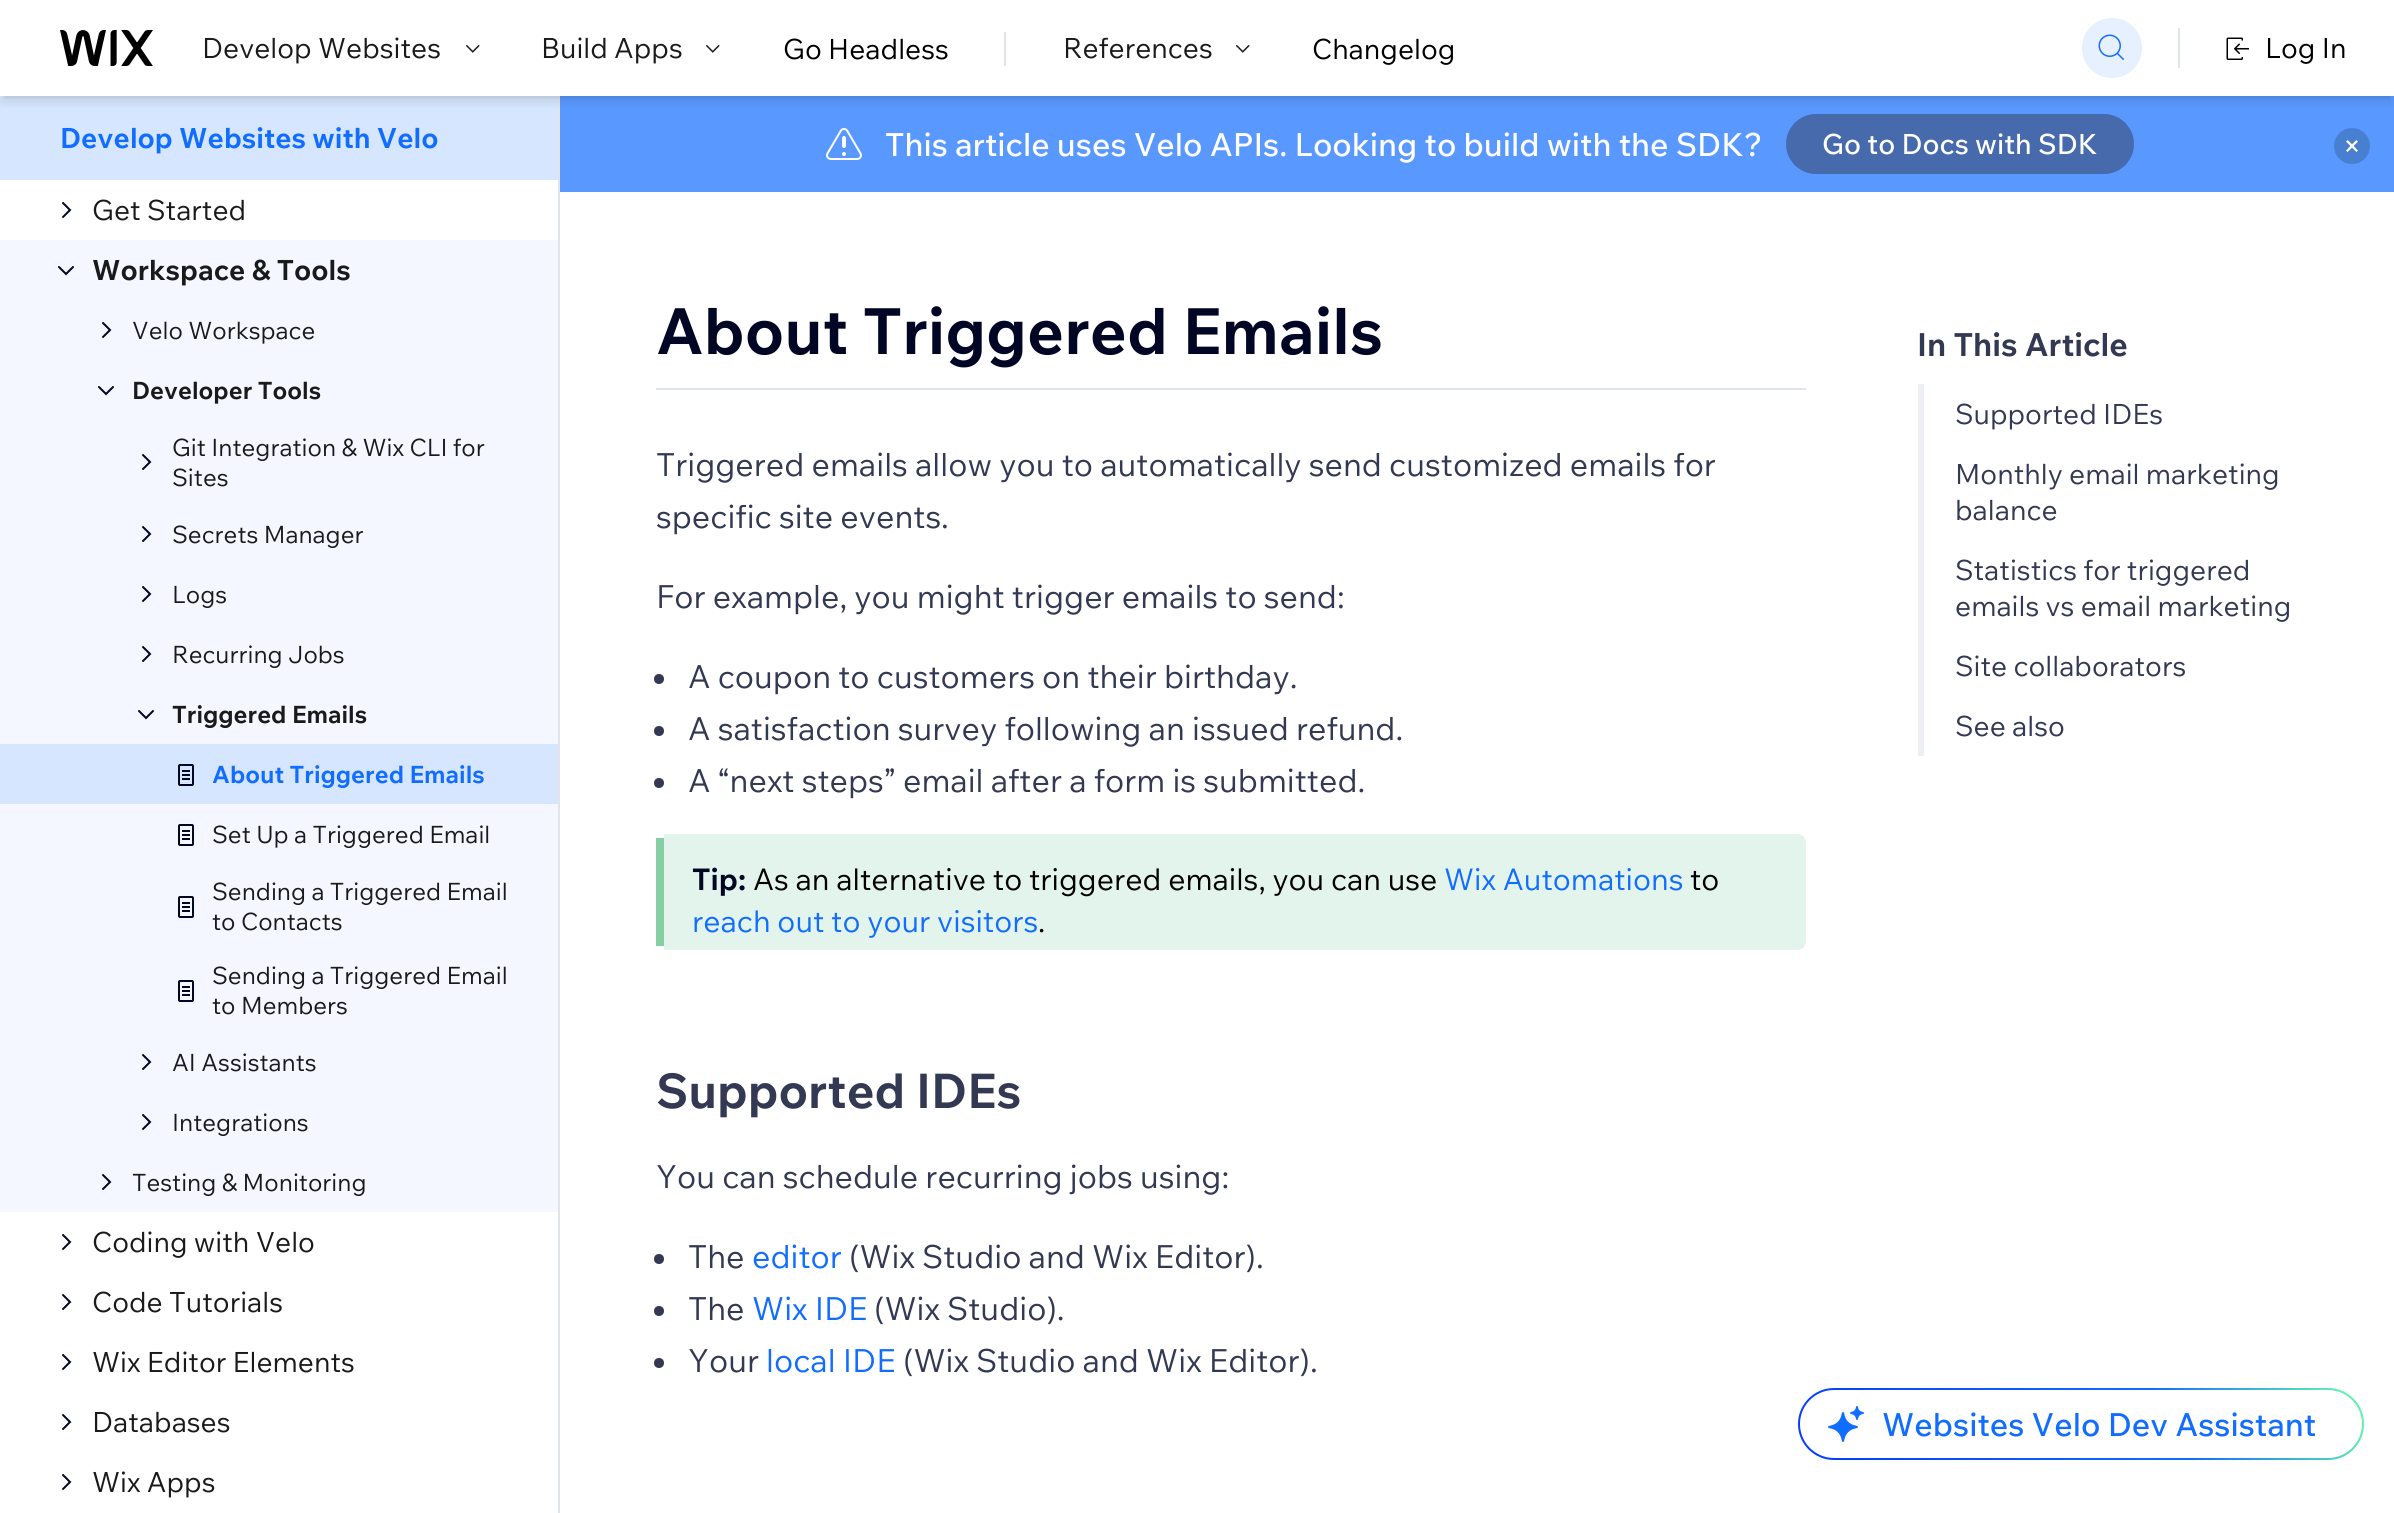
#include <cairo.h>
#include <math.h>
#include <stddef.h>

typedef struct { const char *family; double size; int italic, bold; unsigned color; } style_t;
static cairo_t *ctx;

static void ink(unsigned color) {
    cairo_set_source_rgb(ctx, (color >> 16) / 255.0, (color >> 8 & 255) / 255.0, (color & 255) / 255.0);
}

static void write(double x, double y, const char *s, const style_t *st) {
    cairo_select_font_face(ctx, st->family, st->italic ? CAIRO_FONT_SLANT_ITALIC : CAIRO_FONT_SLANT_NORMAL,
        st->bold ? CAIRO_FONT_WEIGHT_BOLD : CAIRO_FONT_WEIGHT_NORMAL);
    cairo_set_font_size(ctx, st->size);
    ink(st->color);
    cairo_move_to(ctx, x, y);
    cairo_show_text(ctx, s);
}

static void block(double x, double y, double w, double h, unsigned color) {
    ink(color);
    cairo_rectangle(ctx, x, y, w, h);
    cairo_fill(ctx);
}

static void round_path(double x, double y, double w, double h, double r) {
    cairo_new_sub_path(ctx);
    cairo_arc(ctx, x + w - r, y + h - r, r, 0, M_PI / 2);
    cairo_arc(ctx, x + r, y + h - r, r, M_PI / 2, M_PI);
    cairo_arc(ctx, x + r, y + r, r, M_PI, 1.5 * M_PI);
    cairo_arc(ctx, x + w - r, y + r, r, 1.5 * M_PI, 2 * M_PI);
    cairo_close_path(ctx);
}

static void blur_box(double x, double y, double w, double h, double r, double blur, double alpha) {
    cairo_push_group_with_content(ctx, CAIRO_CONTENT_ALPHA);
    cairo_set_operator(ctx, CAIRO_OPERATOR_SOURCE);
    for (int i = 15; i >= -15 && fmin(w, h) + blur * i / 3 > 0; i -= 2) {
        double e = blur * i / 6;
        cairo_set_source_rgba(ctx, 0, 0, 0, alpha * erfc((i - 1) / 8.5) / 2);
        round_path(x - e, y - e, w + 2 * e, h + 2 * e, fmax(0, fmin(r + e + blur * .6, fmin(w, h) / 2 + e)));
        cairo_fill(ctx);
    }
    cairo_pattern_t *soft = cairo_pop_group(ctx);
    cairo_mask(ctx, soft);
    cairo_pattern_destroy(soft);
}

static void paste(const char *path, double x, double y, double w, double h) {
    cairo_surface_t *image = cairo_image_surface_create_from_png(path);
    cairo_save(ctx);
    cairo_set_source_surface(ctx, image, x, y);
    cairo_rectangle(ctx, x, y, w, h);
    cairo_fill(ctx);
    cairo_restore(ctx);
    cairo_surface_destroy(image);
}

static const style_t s1 = {"Wix Madefor Text", 28, 0, 0, 0x1a1a1a};
static const style_t s2 = {"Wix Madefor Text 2", 28, 0, 0, 0x000000};
static const style_t s3 = {"Wix Madefor Text", 28, 0, 1, 0x116dff};
static const style_t s4 = {"Wix Madefor Text", 28, 0, 1, 0x1a1a1a};
static const style_t s5 = {"Wix Madefor Text", 24, 0, 0, 0x1a1a1a};
static const style_t s6 = {"Wix Madefor Text", 24, 0, 1, 0x1a1a1a};
static const style_t s7 = {"Wix Madefor Text", 24, 0, 1, 0x116dff};
static const style_t s8 = {"Wix Madefor Text Medium", 32, 0, 0, 0xffffff};
static const style_t s9 = {"Wix Madefor Text Medium", 28, 0, 0, 0xffffff};
static const style_t s10 = {"Wix Madefor Text 2", 64, 0, 1, 0x000624};
static const style_t s11 = {"Wix Madefor Text 2", 32, 0, 1, 0x333853};
static const style_t s12 = {"Wix Madefor Text 2", 28, 0, 0, 0x333853};
static const style_t s13 = {"Wix Madefor Text 2", 32, 0, 0, 0x333853};
static const style_t s14 = {"Wix Madefor Text 2", 30, 0, 1, 0x000624};
static const style_t s15 = {"Wix Madefor Text 2", 30, 0, 0, 0x000000};
static const style_t s16 = {"Wix Madefor Text 2", 30, 0, 0, 0x116dff};
static const style_t s17 = {"Wix Madefor Text 2", 48, 0, 1, 0x333853};
static const style_t s18 = {"Wix Madefor Text 2", 32, 0, 0, 0x116dff};
static const style_t s19 = {"Wix Madefor Text Medium", 32, 0, 0, 0x116dff};

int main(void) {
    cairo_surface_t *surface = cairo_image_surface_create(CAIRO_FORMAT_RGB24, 2394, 1513);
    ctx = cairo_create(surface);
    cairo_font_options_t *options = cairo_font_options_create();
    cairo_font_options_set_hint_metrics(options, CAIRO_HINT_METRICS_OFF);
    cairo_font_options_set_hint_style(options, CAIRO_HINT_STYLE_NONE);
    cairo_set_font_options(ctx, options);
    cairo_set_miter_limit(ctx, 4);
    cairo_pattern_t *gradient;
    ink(0xffffff);
    cairo_paint(ctx);
    block(558, 96, 2, 1417, 0xdfe5eb);
    block(0, 96, 558, 84, 0xd6e6fe);
    block(560, 96, 1834, 96, 0x5999ff);
    cairo_save(ctx);
    cairo_rectangle(ctx, 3, 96, 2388, 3);
    cairo_clip(ctx);
    ink(0x000000);
    blur_box(4, 8, 2386, 88, 0, 4, 0.1);
    cairo_restore(ctx);
    ink(0x476aac);
    round_path(1786, 114, 348, 60, 30);
    cairo_fill(ctx);
    cairo_save(ctx);
    cairo_rectangle(ctx, 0, 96, 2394, 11);
    cairo_clip(ctx);
    ink(0x000000);
    blur_box(2, 10, 2390, 92, 0, 6, 0.1);
    cairo_restore(ctx);
    paste("pic1.png", 60, 30, 93, 36);
    write(202, 58, "Develop Websites", &s1);
    paste("pic2.png", 466, 45, 14, 8);
    write(541, 58, "Build Apps", &s1);
    paste("pic2.png", 706, 45, 14, 8);
    write(783, 59, "Go Headless", &s2);
    block(1004, 32, 2, 34, 0xdfe5eb);
    write(1063, 58, "References", &s1);
    paste("pic2.png", 1236, 45, 14, 8);
    write(1312, 59, "Changelog", &s2);
    ink(0xe7f0ff);
    cairo_new_path(ctx);
    cairo_arc(ctx, 2112, 48, 29, 0, 2 * M_PI);
    cairo_fill_preserve(ctx);
    cairo_stroke(ctx);
    paste("pic3.png", 2098, 34, 26, 26);
    block(2178, 28, 2, 40, 0xdfe5eb);
    paste("pic4.png", 2226, 37, 23, 23);
    write(2265, 58, "Log In", &s2);
    write(60, 148, "Develop Websites with Velo", &s3);
    paste("pic5.png", 62, 202, 10, 16);
    write(92, 220, "Get Started", &s1);
    block(0, 240, 558, 504, 0xf4f7ff);
    paste("pic6.png", 58, 266, 16, 10);
    write(92, 280, "Workspace & Tools", &s4);
    paste("pic7.png", 102, 322, 10, 16);
    write(132, 339, "Velo Workspace", &s5);
    paste("pic6.png", 98, 386, 16, 10);
    write(132, 399, "Developer Tools", &s6);
    paste("pic7.png", 142, 454, 10, 16);
    write(172, 456, "Git Integration & Wix CLI for", &s5);
    write(172, 486, "Sites", &s5);
    paste("pic7.png", 142, 526, 10, 16);
    write(172, 543, "Secrets Manager", &s5);
    paste("pic7.png", 142, 586, 10, 16);
    write(172, 603, "Logs", &s5);
    paste("pic7.png", 142, 646, 10, 16);
    write(172, 663, "Recurring Jobs", &s5);
    paste("pic6.png", 138, 710, 16, 10);
    write(172, 723, "Triggered Emails", &s6);
    block(0, 744, 558, 60, 0xd6e6fe);
    paste("pic8.png", 178, 764, 16, 22);
    write(212, 783, "About Triggered Emails", &s7);
    block(0, 804, 558, 408, 0xf4f7ff);
    paste("pic9.png", 178, 824, 16, 22);
    write(212, 843, "Set Up a Triggered Email", &s5);
    paste("pic9.png", 178, 896, 16, 22);
    write(212, 900, "Sending a Triggered Email", &s5);
    write(212, 930, "to Contacts", &s5);
    paste("pic9.png", 178, 980, 16, 22);
    write(212, 984, "Sending a Triggered Email", &s5);
    write(212, 1014, "to Members", &s5);
    paste("pic7.png", 142, 1054, 10, 16);
    write(172, 1071, "AI Assistants", &s5);
    paste("pic7.png", 142, 1114, 10, 16);
    write(172, 1131, "Integrations", &s5);
    paste("pic7.png", 102, 1174, 10, 16);
    write(132, 1191, "Testing & Monitoring", &s5);
    paste("pic5.png", 62, 1234, 10, 16);
    write(92, 1252, "Coding with Velo", &s1);
    paste("pic5.png", 62, 1294, 10, 16);
    write(92, 1312, "Code Tutorials", &s1);
    paste("pic5.png", 62, 1354, 10, 16);
    write(92, 1372, "Wix Editor Elements", &s1);
    paste("pic5.png", 62, 1414, 10, 16);
    write(92, 1432, "Databases", &s1);
    paste("pic5.png", 62, 1474, 10, 16);
    write(92, 1492, "Wix Apps", &s1);
    paste("pic10.png", 826, 128, 36, 32);
    write(885, 156, "This article uses Velo APIs. Looking to build with the SDK?", &s8);
    write(1822, 154, "Go to Docs with SDK", &s9);
    ink(0x497fd0);
    cairo_new_path(ctx);
    cairo_arc(ctx, 2352, 146, 18, 0, 2 * M_PI);
    cairo_fill(ctx);
    paste("pic11.png", 2346, 140, 12, 12);
    block(656, 388, 1150, 2, 0xdfe5eb);
    write(656, 354, "About Triggered Emails", &s10);
    write(1917, 356, "In This Article", &s11);
    block(1918, 384, 6, 372, 0xeceff3);
    write(1955, 424, "Supported IDEs", &s12);
    write(1955, 484, "Monthly email marketing", &s12);
    write(1955, 520, "balance", &s12);
    write(1955, 580, "Statistics for triggered", &s12);
    write(1955, 616, "emails vs email marketing", &s12);
    write(1955, 676, "Site collaborators", &s12);
    write(1955, 736, "See also", &s12);
    write(656, 476, "Triggered emails allow you to automatically send customized emails for", &s13);
    write(656, 528, "specific site events.", &s13);
    write(656, 608, "For example, you might trigger emails to send:", &s13);
    cairo_new_path(ctx);
    cairo_arc(ctx, 659, 679, 5, 0, 2 * M_PI);
    cairo_fill(ctx);
    write(688, 688, "A coupon to customers on their birthday.", &s13);
    cairo_new_path(ctx);
    cairo_arc(ctx, 659, 731, 5, 0, 2 * M_PI);
    cairo_fill(ctx);
    write(688, 740, "A satisfaction survey following an issued refund.", &s13);
    cairo_new_path(ctx);
    cairo_arc(ctx, 659, 783, 5, 0, 2 * M_PI);
    cairo_fill(ctx);
    write(688, 792, "A “next steps” email after a form is submitted.", &s13);
    ink(0xe3f4ec);
    cairo_new_path(ctx);
    cairo_move_to(ctx, 664, 834);
    cairo_line_to(ctx, 1798, 834);
    cairo_curve_to(ctx, 1802, 834, 1806, 838, 1806, 842);
    cairo_line_to(ctx, 1806, 942);
    cairo_curve_to(ctx, 1806, 946, 1802, 950, 1798, 950);
    cairo_line_to(ctx, 664, 950);
    cairo_close_path(ctx);
    cairo_fill(ctx);
    block(656, 838, 8, 108, 0x87cea5);
    write(692, 890, "Tip:", &s14);
    write(753, 890, "As an alternative to triggered emails, you can use", &s15);
    write(1444, 890, "Wix Automations", &s16);
    write(1690, 890, "to", &s15);
    write(692, 932, "reach out to your visitors", &s16);
    write(1038, 932, ".", &s15);
    write(656, 1108, "Supported IDEs", &s17);
    write(656, 1188, "You can schedule recurring jobs using:", &s13);
    cairo_new_path(ctx);
    cairo_arc(ctx, 659, 1259, 5, 0, 2 * M_PI);
    cairo_fill(ctx);
    write(688, 1268, "The", &s13);
    write(752, 1268, "editor", &s18);
    write(849, 1268, "(Wix Studio and Wix Editor).", &s13);
    cairo_new_path(ctx);
    cairo_arc(ctx, 659, 1311, 5, 0, 2 * M_PI);
    cairo_fill(ctx);
    write(688, 1320, "The", &s13);
    write(752, 1320, "Wix IDE", &s18);
    write(874, 1320, "(Wix Studio).", &s13);
    cairo_new_path(ctx);
    cairo_arc(ctx, 659, 1363, 5, 0, 2 * M_PI);
    cairo_fill(ctx);
    write(688, 1372, "Your", &s13);
    write(766, 1372, "local IDE", &s18);
    write(903, 1372, "(Wix Studio and Wix Editor).", &s13);
    gradient = cairo_pattern_create_linear(1712, 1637, 2309, 1292);
    cairo_pattern_add_color_stop_rgba(gradient, 0, 0, 0.129, 1, 1);
    cairo_pattern_add_color_stop_rgba(gradient, 0.73, 0.067, 0.427, 1, 1);
    cairo_pattern_add_color_stop_rgba(gradient, 0.97, 0.373, 0.949, 0.682, 1);
    cairo_set_source(ctx, gradient);
    cairo_pattern_destroy(gradient);
    round_path(1798, 1388, 566, 72, 36);
    cairo_fill(ctx);
    ink(0xffffff);
    round_path(1800, 1390, 562, 68, 34);
    cairo_fill(ctx);
    paste("pic12.png", 1828, 1406, 36, 36);
    write(1882, 1436, "Websites Velo Dev Assistant", &s19);
    cairo_surface_write_to_png(surface, "screenshot.png");
    cairo_font_options_destroy(options);
    cairo_destroy(ctx);
    cairo_surface_destroy(surface);
    return 0;
}
